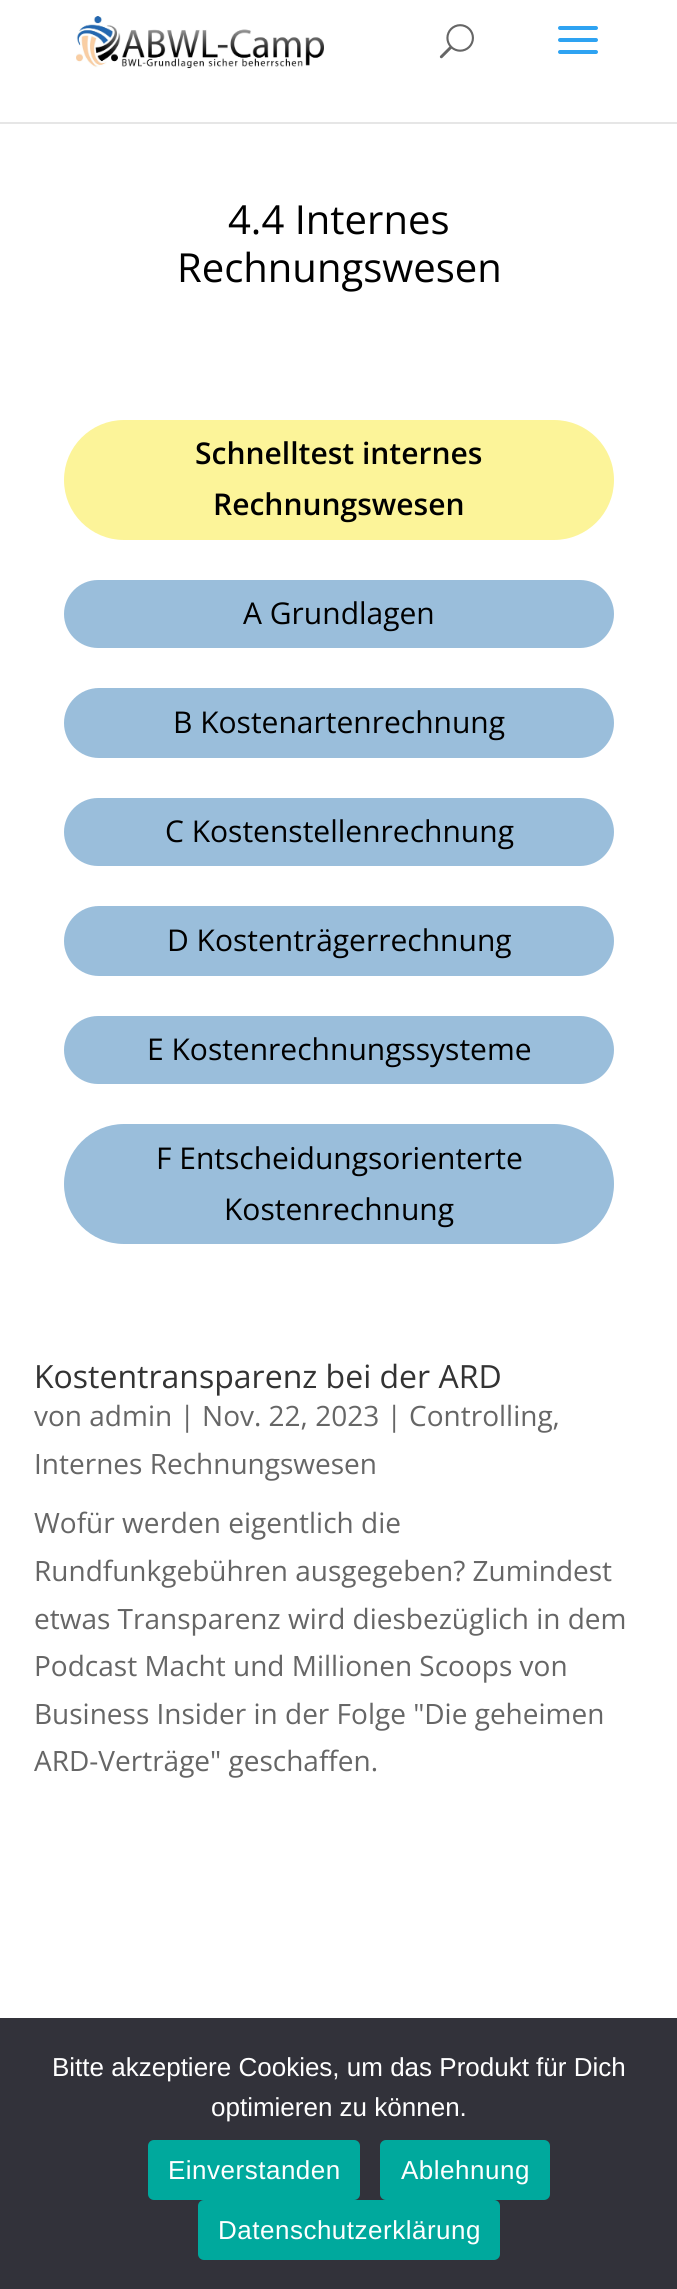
#include <cairo.h>
#include <math.h>
#include <stddef.h>

typedef struct { const char *family; double size; int italic, bold; unsigned color; } style_t;
static cairo_t *ctx;

static void ink(unsigned color) {
    cairo_set_source_rgb(ctx, (color >> 16) / 255.0, (color >> 8 & 255) / 255.0, (color & 255) / 255.0);
}

static void write(double x, double y, const char *s, const style_t *st) {
    cairo_select_font_face(ctx, st->family, st->italic ? CAIRO_FONT_SLANT_ITALIC : CAIRO_FONT_SLANT_NORMAL,
        st->bold ? CAIRO_FONT_WEIGHT_BOLD : CAIRO_FONT_WEIGHT_NORMAL);
    cairo_set_font_size(ctx, st->size);
    ink(st->color);
    cairo_move_to(ctx, x, y);
    cairo_show_text(ctx, s);
}

static void write_spaced(double x, double y, const char *s, double letter, double word) {
    cairo_move_to(ctx, x, y);
    while (*s) {
        char ch[5] = {0};
        int n = 0;
        do ch[n++] = *s++; while ((*s & 0xC0) == 0x80);
        cairo_show_text(ctx, ch);
        cairo_rel_move_to(ctx, letter + word * (*ch == ' '), 0);
    }
}

static void block(double x, double y, double w, double h, unsigned color) {
    ink(color);
    cairo_rectangle(ctx, x, y, w, h);
    cairo_fill(ctx);
}

static void round_path(double x, double y, double w, double h, double r) {
    cairo_new_sub_path(ctx);
    cairo_arc(ctx, x + w - r, y + h - r, r, 0, M_PI / 2);
    cairo_arc(ctx, x + r, y + h - r, r, M_PI / 2, M_PI);
    cairo_arc(ctx, x + r, y + r, r, M_PI, 1.5 * M_PI);
    cairo_arc(ctx, x + w - r, y + r, r, 1.5 * M_PI, 2 * M_PI);
    cairo_close_path(ctx);
}

static void paste(const char *path, double x, double y, double w, double h) {
    cairo_surface_t *image = cairo_image_surface_create_from_png(path);
    cairo_save(ctx);
    cairo_set_source_surface(ctx, image, x, y);
    cairo_rectangle(ctx, x, y, w, h);
    cairo_fill(ctx);
    cairo_restore(ctx);
    cairo_surface_destroy(image);
}

static const style_t s1 = {"Open Sans", 40, 0, 0, 0x000000};
static const style_t s2 = {"Open Sans SemiBold", 30, 0, 0, 0x000000};
static const style_t s3 = {"Open Sans", 30, 0, 0, 0x000000};
static const style_t s4 = {"Open Sans", 32, 0, 0, 0x333333};
static const style_t s5 = {"Open Sans", 28, 0, 0, 0x666666};
static const style_t s6 = {"Liberation Sans", 26, 0, 0, 0xffffff};

int main(void) {
    cairo_surface_t *surface = cairo_image_surface_create(CAIRO_FORMAT_RGB24, 677, 2289);
    ctx = cairo_create(surface);
    cairo_font_options_t *options = cairo_font_options_create();
    cairo_font_options_set_hint_metrics(options, CAIRO_HINT_METRICS_OFF);
    cairo_font_options_set_hint_style(options, CAIRO_HINT_STYLE_NONE);
    cairo_set_font_options(ctx, options);
    cairo_set_miter_limit(ctx, 4);
    ink(0xffffff);
    cairo_paint(ctx);
    block(0, 122, 677, 2, 0xe6e6e6);
    paste("pic1.png", 76, 16, 248, 53);
    paste("pic2.png", 439, 24, 35, 35);
    paste("pic3.png", 558, 26, 40, 28);
    write(228, 234, "4.4 Internes", &s1);
    write(177, 282, "Rechnungswesen", &s1);
    ink(0xfcf499);
    round_path(64, 420, 550, 120, 60);
    cairo_fill(ctx);
    write(195, 464, "Schnelltest internes", &s2);
    write(213, 515, "Rechnungswesen", &s2);
    ink(0x9abedb);
    round_path(64, 580, 550, 68, 34);
    cairo_fill(ctx);
    write(243, 624, "A Grundlagen", &s3);
    ink(0x9abedb);
    round_path(64, 688, 550, 70, 35);
    cairo_fill(ctx);
    write(173, 733, "B Kostenartenrechnung", &s3);
    ink(0x9abedb);
    round_path(64, 798, 550, 68, 34);
    cairo_fill(ctx);
    write(165, 842, "C Kostenstellenrechnung", &s3);
    ink(0x9abedb);
    round_path(64, 906, 550, 70, 35);
    cairo_fill(ctx);
    write(167, 951, "D Kostenträgerrechnung", &s3);
    ink(0x9abedb);
    round_path(64, 1016, 550, 68, 34);
    cairo_fill(ctx);
    write(147, 1060, "E Kostenrechnungssysteme", &s3);
    ink(0x9abedb);
    round_path(64, 1124, 550, 120, 60);
    cairo_fill(ctx);
    write(156, 1169, "F Entscheidungsorienterte", &s3);
    write(224, 1220, "Kostenrechnung", &s3);
    write(34, 1388, "Kostentransparenz bei der ARD", &s4);
    write(34, 1426, "von admin | Nov. 22, 2023 | Controlling,", &s5);
    write(34, 1474, "Internes Rechnungswesen", &s5);
    write(34, 1533, "Wofür werden eigentlich die", &s5);
    write(34, 1581, "Rundfunkgebühren ausgegeben? Zumindest", &s5);
    write(34, 1629, "etwas Transparenz wird diesbezüglich in dem", &s5);
    write(34, 1676, "Podcast Macht und Millionen Scoops von", &s5);
    write(34, 1724, "Business Insider in der Folge \"Die geheimen", &s5);
    write(34, 1771, "ARD-Verträge\" geschaffen.", &s5);
    block(0, 2018, 677, 271, 0x32323a);
    write(52, 2076, "Bitte akzeptiere Cookies, um das Produkt für Dich", &s6);
    write(211, 2116, "optimieren zu können.", &s6);
    ink(0x00a99d);
    round_path(148, 2140, 212, 60, 6);
    cairo_fill(ctx);
    ink(0xffffff);
    write_spaced(168, 2179, "Einverstanden", 0.5, 0);
    ink(0x00a99d);
    round_path(380, 2140, 170, 60, 6);
    cairo_fill(ctx);
    ink(0xffffff);
    write_spaced(401, 2179, "Ablehnung", 0.5, 0);
    ink(0x00a99d);
    round_path(198, 2200, 302, 60, 6);
    cairo_fill(ctx);
    ink(0xffffff);
    write_spaced(218, 2239, "Datenschutzerklärung", 0.5, 0);
    cairo_surface_write_to_png(surface, "screenshot.png");
    cairo_font_options_destroy(options);
    cairo_destroy(ctx);
    cairo_surface_destroy(surface);
    return 0;
}
